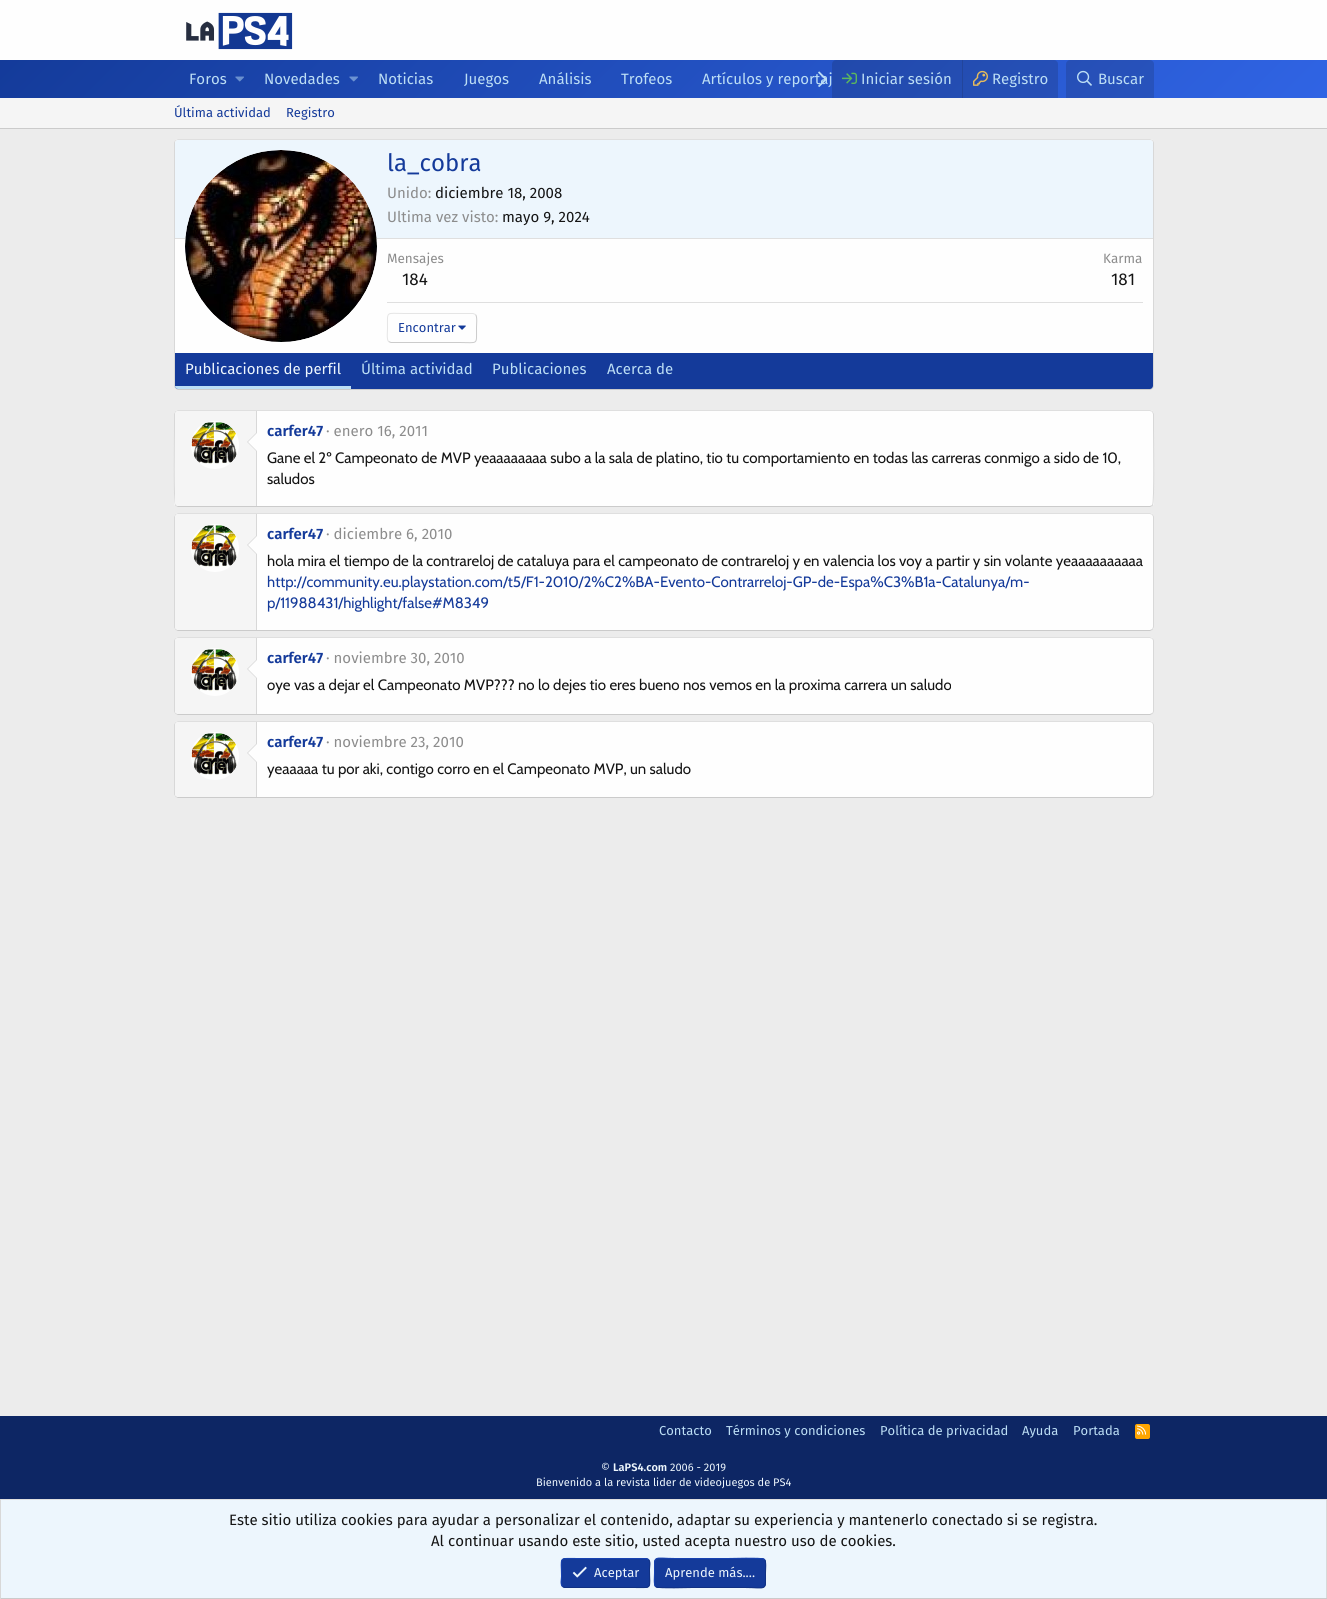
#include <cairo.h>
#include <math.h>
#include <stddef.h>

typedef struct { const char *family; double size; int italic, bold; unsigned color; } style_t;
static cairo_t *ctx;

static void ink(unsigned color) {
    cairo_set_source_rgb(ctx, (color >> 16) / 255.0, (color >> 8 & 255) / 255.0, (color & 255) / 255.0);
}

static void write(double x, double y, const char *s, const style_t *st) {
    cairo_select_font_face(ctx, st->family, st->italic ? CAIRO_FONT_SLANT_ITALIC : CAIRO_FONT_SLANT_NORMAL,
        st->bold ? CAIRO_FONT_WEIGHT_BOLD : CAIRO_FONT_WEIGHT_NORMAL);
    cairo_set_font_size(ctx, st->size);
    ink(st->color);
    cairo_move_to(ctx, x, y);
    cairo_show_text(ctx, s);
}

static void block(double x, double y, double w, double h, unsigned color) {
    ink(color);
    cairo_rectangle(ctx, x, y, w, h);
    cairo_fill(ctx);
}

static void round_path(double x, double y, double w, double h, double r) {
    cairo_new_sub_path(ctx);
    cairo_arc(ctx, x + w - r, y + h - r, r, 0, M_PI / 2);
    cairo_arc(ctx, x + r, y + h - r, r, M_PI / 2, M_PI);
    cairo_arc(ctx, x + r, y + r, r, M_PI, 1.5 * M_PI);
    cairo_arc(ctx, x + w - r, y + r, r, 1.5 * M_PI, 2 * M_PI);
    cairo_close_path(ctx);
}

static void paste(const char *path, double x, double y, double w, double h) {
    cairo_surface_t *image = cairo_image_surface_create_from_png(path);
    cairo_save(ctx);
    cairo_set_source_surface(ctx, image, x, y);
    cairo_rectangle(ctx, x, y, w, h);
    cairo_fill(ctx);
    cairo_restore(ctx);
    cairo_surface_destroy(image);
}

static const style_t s1 = {"Fira Sans", 15, 0, 0, 0xbcdef5};
static const style_t s2 = {"Fira Sans", 13, 0, 0, 0x143a9a};
static const style_t s3 = {"Fira Sans", 24, 0, 0, 0x143a9a};
static const style_t s4 = {"Fira Sans", 15, 0, 0, 0x8c8c8c};
static const style_t s5 = {"Fira Sans", 15, 0, 0, 0x141414};
static const style_t s6 = {"Fira Sans", 13.5, 0, 0, 0x8c8c8c};
static const style_t s7 = {"Fira Sans", 17, 0, 0, 0x141414};
static const style_t s8 = {"Fira Sans", 15, 0, 0, 0xedf6fd};
static const style_t s9 = {"Fira Sans SemiBold", 15, 0, 0, 0x143a9a};
static const style_t s10 = {"Cabin", 15, 0, 0, 0x141414};
static const style_t s11 = {"Cabin", 15, 0, 0, 0x143a9a};
static const style_t s12 = {"Fira Sans", 13, 0, 0, 0xbcdef5};
static const style_t s13 = {"Fira Sans", 11, 0, 0, 0xedf6fd};
static const style_t s14 = {"Fira Sans SemiBold", 11, 0, 0, 0xedf6fd};
static const style_t s15 = {"Fira Sans", 13, 0, 0, 0xedf6fd};

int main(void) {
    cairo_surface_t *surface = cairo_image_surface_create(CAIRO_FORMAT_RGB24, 1327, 1599);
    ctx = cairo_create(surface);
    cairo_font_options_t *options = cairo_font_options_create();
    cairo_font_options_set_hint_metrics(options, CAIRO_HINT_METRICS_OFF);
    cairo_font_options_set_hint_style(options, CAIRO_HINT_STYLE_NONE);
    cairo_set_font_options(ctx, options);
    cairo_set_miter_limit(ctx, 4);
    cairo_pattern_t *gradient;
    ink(0xececec);
    cairo_paint(ctx);
    block(0, 0, 1327, 60, 0xfefefe);
    paste("pic1.png", 186, 12, 107, 38);
    gradient = cairo_pattern_create_linear(322, -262, 1005, 420);
    cairo_pattern_add_color_stop_rgba(gradient, 0, 0.078, 0.231, 0.604, 1);
    cairo_pattern_add_color_stop_rgba(gradient, 1, 0.188, 0.392, 0.894, 1);
    cairo_set_source(ctx, gradient);
    cairo_pattern_destroy(gradient);
    cairo_rectangle(ctx, 0, 60, 1327, 38);
    cairo_fill(ctx);
    write(702, 84, "Artículos y reportaj", &s1);
    paste("pic2.png", 818, 71, 8, 16);
    write(189, 84, "Foros", &s1);
    paste("pic3.png", 235, 76, 9, 6);
    write(264, 84, "Novedades", &s1);
    paste("pic4.png", 349, 76, 9, 6);
    write(378, 84, "Noticias", &s1);
    write(464, 84, "Juegos", &s1);
    write(539, 84, "Análisis", &s1);
    write(621, 84, "Trofeos", &s1);
    cairo_set_source_rgba(ctx, 0.078, 0.078, 0.078, 0.15);
    cairo_new_path(ctx);
    cairo_move_to(ctx, 836, 60);
    cairo_line_to(ctx, 1054, 60);
    cairo_curve_to(ctx, 1056, 60, 1058, 62, 1058, 64);
    cairo_line_to(ctx, 1058, 98);
    cairo_line_to(ctx, 832, 98);
    cairo_line_to(ctx, 832, 64);
    cairo_curve_to(ctx, 832, 62, 834, 60, 836, 60);
    cairo_close_path(ctx);
    cairo_fill(ctx);
    paste("pic5.png", 842, 72, 15, 12);
    write(861, 84, "Iniciar sesión", &s1);
    block(962, 60, 1, 38, 0x22459b);
    paste("pic6.png", 973, 70, 15, 16);
    write(992, 84, "Registro", &s1);
    cairo_set_source_rgba(ctx, 0.078, 0.078, 0.078, 0.15);
    cairo_new_path(ctx);
    cairo_move_to(ctx, 1070, 60);
    cairo_line_to(ctx, 1150, 60);
    cairo_curve_to(ctx, 1152, 60, 1154, 62, 1154, 64);
    cairo_line_to(ctx, 1154, 98);
    cairo_line_to(ctx, 1066, 98);
    cairo_line_to(ctx, 1066, 64);
    cairo_curve_to(ctx, 1066, 62, 1068, 60, 1070, 60);
    cairo_close_path(ctx);
    cairo_fill(ctx);
    paste("pic7.png", 1077, 70, 15, 16);
    write(1098, 84, "Buscar", &s1);
    block(0, 98, 1327, 30, 0xf5f5f5);
    block(0, 128, 1327, 1, 0xcbcbcb);
    write(174, 117, "Última actividad", &s2);
    write(286, 117, "Registro", &s2);
    ink(0xfefefe);
    round_path(174, 139, 980, 251, 4);
    cairo_fill(ctx);
    cairo_new_path(ctx);
    cairo_move_to(ctx, 175.5, 140.5);
    cairo_line_to(ctx, 178, 139.5);
    cairo_line_to(ctx, 1150, 139.5);
    cairo_line_to(ctx, 1152.5, 140.5);
    ink(0xdfdfdf);
    cairo_set_line_width(ctx, 1);
    cairo_stroke(ctx);
    cairo_new_path(ctx);
    cairo_move_to(ctx, 1152.5, 140.5);
    cairo_curve_to(ctx, 1153, 141, 1153.5, 142, 1153.5, 143);
    cairo_line_to(ctx, 1153.5, 386);
    cairo_curve_to(ctx, 1153.5, 387, 1153, 388, 1152.5, 388.5);
    ink(0xd8d8d8);
    cairo_stroke(ctx);
    cairo_new_path(ctx);
    cairo_move_to(ctx, 1152.5, 388.5);
    cairo_line_to(ctx, 1150, 389.5);
    cairo_line_to(ctx, 178, 389.5);
    cairo_line_to(ctx, 175.5, 388.5);
    ink(0xcbcbcb);
    cairo_stroke(ctx);
    cairo_new_path(ctx);
    cairo_move_to(ctx, 175.5, 388.5);
    cairo_curve_to(ctx, 175, 388, 174.5, 387, 174.5, 386);
    cairo_line_to(ctx, 174.5, 143);
    cairo_curve_to(ctx, 174.5, 142, 175, 141, 175.5, 140.5);
    ink(0xd8d8d8);
    cairo_stroke(ctx);
    ink(0xedf6fd);
    cairo_new_path(ctx);
    cairo_move_to(ctx, 178, 140);
    cairo_line_to(ctx, 1150, 140);
    cairo_curve_to(ctx, 1151.5, 140, 1153, 141.5, 1153, 143);
    cairo_line_to(ctx, 1153, 239);
    cairo_line_to(ctx, 175, 239);
    cairo_line_to(ctx, 175, 143);
    cairo_curve_to(ctx, 175, 141.5, 176.5, 140, 178, 140);
    cairo_close_path(ctx);
    cairo_fill(ctx);
    block(175, 238, 978, 1, 0xdfdfdf);
    ink(0xfefefe);
    cairo_arc(ctx, 281, 246, 96, 0, 2 * M_PI);
    cairo_fill(ctx);
    paste("pic8.png", 185, 150, 192, 192);
    write(387, 171, "la_cobra", &s3);
    write(387, 198, "Unido:", &s4);
    write(435, 198, "diciembre 18, 2008", &s5);
    write(387, 222, "Ultima vez visto:", &s4);
    write(502, 222, "mayo 9, 2024", &s5);
    write(387, 263, "Mensajes", &s6);
    write(402, 285, "184", &s7);
    write(1103, 263, "Karma", &s6);
    write(1111, 285, "181", &s7);
    block(387, 302, 756, 1, 0xdfdfdf);
    cairo_new_path(ctx);
    cairo_move_to(ctx, 475.5, 314.5);
    cairo_curve_to(ctx, 477.5, 316.5, 476.5, 325, 476.5, 328);
    cairo_curve_to(ctx, 476.5, 345.5, 478.5, 342.5, 459.5, 342.5);
    cairo_line_to(ctx, 391, 342.5);
    cairo_line_to(ctx, 388.5, 341.5);
    ink(0xcbcbcb);
    cairo_stroke(ctx);
    cairo_new_path(ctx);
    cairo_move_to(ctx, 388.5, 341.5);
    cairo_curve_to(ctx, 386.5, 339.5, 387.5, 331, 387.5, 328);
    cairo_curve_to(ctx, 387.5, 310.5, 385.5, 313.5, 404.5, 313.5);
    cairo_line_to(ctx, 473, 313.5);
    cairo_line_to(ctx, 475.5, 314.5);
    ink(0xe5e5e5);
    cairo_stroke(ctx);
    write(398, 332, "Encontrar", &s2);
    paste("pic9.png", 458, 325, 8, 5);
    cairo_new_path(ctx);
    cairo_move_to(ctx, 175, 353);
    cairo_line_to(ctx, 1153, 353);
    cairo_line_to(ctx, 1153, 386);
    cairo_curve_to(ctx, 1153, 387.5, 1151.5, 389, 1150, 389);
    cairo_line_to(ctx, 178, 389);
    cairo_curve_to(ctx, 176.5, 389, 175, 387.5, 175, 386);
    cairo_close_path(ctx);
    cairo_fill(ctx);
    ink(0xbcdef5);
    cairo_new_path(ctx);
    cairo_move_to(ctx, 175, 386);
    cairo_line_to(ctx, 351, 386);
    cairo_line_to(ctx, 351, 389);
    cairo_line_to(ctx, 178, 389);
    cairo_curve_to(ctx, 176.5, 389, 175, 387.5, 175, 386);
    cairo_close_path(ctx);
    cairo_fill(ctx);
    write(185, 374, "Publicaciones de perfil", &s8);
    write(361, 374, "Última actividad", &s1);
    write(492, 374, "Publicaciones", &s1);
    write(607, 374, "Acerca de", &s1);
    ink(0xfefefe);
    round_path(174, 410, 980, 97, 4);
    cairo_fill(ctx);
    cairo_new_path(ctx);
    cairo_move_to(ctx, 175.5, 411.5);
    cairo_line_to(ctx, 178, 410.5);
    cairo_line_to(ctx, 1150, 410.5);
    cairo_line_to(ctx, 1152.5, 411.5);
    ink(0xdfdfdf);
    cairo_stroke(ctx);
    cairo_new_path(ctx);
    cairo_move_to(ctx, 1152.5, 411.5);
    cairo_line_to(ctx, 1153.5, 414);
    cairo_line_to(ctx, 1153.5, 429);
    cairo_curve_to(ctx, 1153.5, 437.5, 1154.5, 503, 1152.5, 505);
    cairo_line_to(ctx, 1152.5, 505.5);
    ink(0xd8d8d8);
    cairo_stroke(ctx);
    cairo_new_path(ctx);
    cairo_move_to(ctx, 1152.5, 505.5);
    cairo_line_to(ctx, 1150, 506.5);
    cairo_line_to(ctx, 178, 506.5);
    cairo_line_to(ctx, 175.5, 505.5);
    ink(0xcbcbcb);
    cairo_stroke(ctx);
    cairo_new_path(ctx);
    cairo_move_to(ctx, 175.5, 505.5);
    cairo_line_to(ctx, 175.5, 505);
    cairo_curve_to(ctx, 173.5, 503, 174.5, 437.5, 174.5, 429);
    cairo_line_to(ctx, 174.5, 414);
    cairo_line_to(ctx, 175.5, 411.5);
    ink(0xd8d8d8);
    cairo_stroke(ctx);
    ink(0xf5f5f5);
    cairo_new_path(ctx);
    cairo_move_to(ctx, 178, 411);
    cairo_line_to(ctx, 257, 411);
    cairo_line_to(ctx, 257, 506);
    cairo_line_to(ctx, 178, 506);
    cairo_curve_to(ctx, 176.5, 506, 175, 504.5, 175, 503);
    cairo_line_to(ctx, 175, 414);
    cairo_curve_to(ctx, 175, 412.5, 176.5, 411, 178, 411);
    cairo_close_path(ctx);
    cairo_fill(ctx);
    block(256, 411, 1, 95, 0xd8d8d8);
    ink(0xfefefe);
    cairo_arc(ctx, 215, 445, 24, 0, 2 * M_PI);
    cairo_fill(ctx);
    paste("pic10.png", 191, 422, 46, 42);
    ink(0xd8d8d8);
    cairo_new_path(ctx);
    cairo_move_to(ctx, 257, 432);
    cairo_line_to(ctx, 257, 452);
    cairo_line_to(ctx, 247, 442);
    cairo_close_path(ctx);
    cairo_fill(ctx);
    ink(0xfefefe);
    cairo_new_path(ctx);
    cairo_move_to(ctx, 257, 433);
    cairo_line_to(ctx, 257, 451);
    cairo_line_to(ctx, 248, 442);
    cairo_close_path(ctx);
    cairo_fill(ctx);
    write(267, 436, "carfer47", &s9);
    write(326, 436, "· enero 16, 2011", &s4);
    write(267, 463, "Gane el 2º Campeonato de MVP yeaaaaaaaa subo a la sala de platino, tio tu comportamiento en todas las carreras conmigo a sido de 10,", &s10);
    write(267, 484, "saludos", &s10);
    ink(0xfefefe);
    round_path(174, 513, 980, 118, 4);
    cairo_fill(ctx);
    cairo_new_path(ctx);
    cairo_move_to(ctx, 175.5, 514.5);
    cairo_line_to(ctx, 178, 513.5);
    cairo_line_to(ctx, 1150, 513.5);
    cairo_line_to(ctx, 1152.5, 514.5);
    ink(0xdfdfdf);
    cairo_stroke(ctx);
    cairo_new_path(ctx);
    cairo_move_to(ctx, 1152.5, 514.5);
    cairo_line_to(ctx, 1153.5, 516.5);
    cairo_line_to(ctx, 1153.5, 608.5);
    cairo_line_to(ctx, 1153.5, 627);
    cairo_line_to(ctx, 1152.5, 629.5);
    ink(0xd8d8d8);
    cairo_stroke(ctx);
    cairo_new_path(ctx);
    cairo_move_to(ctx, 1152.5, 629.5);
    cairo_line_to(ctx, 1150, 630.5);
    cairo_line_to(ctx, 178, 630.5);
    cairo_line_to(ctx, 175.5, 629.5);
    ink(0xcbcbcb);
    cairo_stroke(ctx);
    cairo_new_path(ctx);
    cairo_move_to(ctx, 175.5, 629.5);
    cairo_line_to(ctx, 174.5, 627.5);
    cairo_line_to(ctx, 174.5, 535.5);
    cairo_line_to(ctx, 174.5, 517);
    cairo_line_to(ctx, 175.5, 514.5);
    ink(0xd8d8d8);
    cairo_stroke(ctx);
    ink(0xf5f5f5);
    cairo_new_path(ctx);
    cairo_move_to(ctx, 178, 514);
    cairo_line_to(ctx, 257, 514);
    cairo_line_to(ctx, 257, 630);
    cairo_line_to(ctx, 178, 630);
    cairo_curve_to(ctx, 176.5, 630, 175, 628.5, 175, 627);
    cairo_line_to(ctx, 175, 517);
    cairo_curve_to(ctx, 175, 515.5, 176.5, 514, 178, 514);
    cairo_close_path(ctx);
    cairo_fill(ctx);
    block(256, 514, 1, 116, 0xd8d8d8);
    ink(0xfefefe);
    cairo_arc(ctx, 215, 548, 24, 0, 2 * M_PI);
    cairo_fill(ctx);
    paste("pic10.png", 191, 525, 46, 42);
    ink(0xd8d8d8);
    cairo_new_path(ctx);
    cairo_move_to(ctx, 257, 535);
    cairo_line_to(ctx, 257, 555);
    cairo_line_to(ctx, 247, 545);
    cairo_close_path(ctx);
    cairo_fill(ctx);
    ink(0xfefefe);
    cairo_new_path(ctx);
    cairo_move_to(ctx, 257, 536);
    cairo_line_to(ctx, 257, 554);
    cairo_line_to(ctx, 248, 545);
    cairo_close_path(ctx);
    cairo_fill(ctx);
    write(267, 539, "carfer47", &s9);
    write(326, 539, "· diciembre 6, 2010", &s4);
    write(267, 566, "hola mira el tiempo de la contrareloj de cataluya para el campeonato de contrareloj y en valencia los voy a partir y sin volante yeaaaaaaaaaa", &s10);
    write(267, 587, "http://community.eu.playstation.com/t5/F1-2010/2%C2%BA-Evento-Contrarreloj-GP-de-Espa%C3%B1a-Catalunya/m-", &s11);
    write(267, 608, "p/11988431/highlight/false#M8349", &s11);
    ink(0xfefefe);
    round_path(174, 637, 980, 78, 4);
    cairo_fill(ctx);
    cairo_new_path(ctx);
    cairo_move_to(ctx, 175.5, 638.5);
    cairo_line_to(ctx, 178, 637.5);
    cairo_line_to(ctx, 1150, 637.5);
    cairo_line_to(ctx, 1152.5, 638.5);
    ink(0xdfdfdf);
    cairo_stroke(ctx);
    cairo_new_path(ctx);
    cairo_move_to(ctx, 1152.5, 638.5);
    cairo_curve_to(ctx, 1153, 639, 1153.5, 640, 1153.5, 641);
    cairo_line_to(ctx, 1153.5, 711);
    cairo_curve_to(ctx, 1153.5, 712, 1153, 713, 1152.5, 713.5);
    ink(0xd8d8d8);
    cairo_stroke(ctx);
    cairo_new_path(ctx);
    cairo_move_to(ctx, 1152.5, 713.5);
    cairo_line_to(ctx, 1150, 714.5);
    cairo_line_to(ctx, 178, 714.5);
    cairo_line_to(ctx, 175.5, 713.5);
    ink(0xcbcbcb);
    cairo_stroke(ctx);
    cairo_new_path(ctx);
    cairo_move_to(ctx, 175.5, 713.5);
    cairo_curve_to(ctx, 175, 713, 174.5, 712, 174.5, 711);
    cairo_line_to(ctx, 174.5, 641);
    cairo_curve_to(ctx, 174.5, 640, 175, 639, 175.5, 638.5);
    ink(0xd8d8d8);
    cairo_stroke(ctx);
    ink(0xf5f5f5);
    cairo_new_path(ctx);
    cairo_move_to(ctx, 178, 638);
    cairo_line_to(ctx, 257, 638);
    cairo_line_to(ctx, 257, 714);
    cairo_line_to(ctx, 178, 714);
    cairo_curve_to(ctx, 176.5, 714, 175, 712.5, 175, 711);
    cairo_line_to(ctx, 175, 641);
    cairo_curve_to(ctx, 175, 639.5, 176.5, 638, 178, 638);
    cairo_close_path(ctx);
    cairo_fill(ctx);
    block(256, 638, 1, 76, 0xd8d8d8);
    ink(0xfefefe);
    cairo_arc(ctx, 215, 672, 24, 0, 2 * M_PI);
    cairo_fill(ctx);
    paste("pic10.png", 191, 649, 46, 42);
    ink(0xd8d8d8);
    cairo_new_path(ctx);
    cairo_move_to(ctx, 257, 659);
    cairo_line_to(ctx, 257, 679);
    cairo_line_to(ctx, 247, 669);
    cairo_close_path(ctx);
    cairo_fill(ctx);
    ink(0xfefefe);
    cairo_new_path(ctx);
    cairo_move_to(ctx, 257, 660);
    cairo_line_to(ctx, 257, 678);
    cairo_line_to(ctx, 248, 669);
    cairo_close_path(ctx);
    cairo_fill(ctx);
    write(267, 663, "carfer47", &s9);
    write(326, 663, "· noviembre 30, 2010", &s4);
    write(267, 690, "oye vas a dejar el Campeonato MVP?\077? no lo dejes tio eres bueno nos vemos en la proxima carrera un saludo", &s10);
    ink(0xfefefe);
    round_path(174, 721, 980, 77, 4);
    cairo_fill(ctx);
    cairo_new_path(ctx);
    cairo_move_to(ctx, 175.5, 722.5);
    cairo_line_to(ctx, 178, 721.5);
    cairo_line_to(ctx, 1150, 721.5);
    cairo_line_to(ctx, 1152.5, 722.5);
    ink(0xdfdfdf);
    cairo_stroke(ctx);
    cairo_new_path(ctx);
    cairo_move_to(ctx, 1152.5, 722.5);
    cairo_line_to(ctx, 1153.5, 724.5);
    cairo_line_to(ctx, 1153.5, 794.5);
    cairo_line_to(ctx, 1152.5, 796.5);
    ink(0xd8d8d8);
    cairo_stroke(ctx);
    cairo_new_path(ctx);
    cairo_move_to(ctx, 1152.5, 796.5);
    cairo_line_to(ctx, 1150, 797.5);
    cairo_line_to(ctx, 178, 797.5);
    cairo_line_to(ctx, 175.5, 796.5);
    ink(0xcbcbcb);
    cairo_stroke(ctx);
    cairo_new_path(ctx);
    cairo_move_to(ctx, 175.5, 796.5);
    cairo_line_to(ctx, 174.5, 794.5);
    cairo_line_to(ctx, 174.5, 724.5);
    cairo_line_to(ctx, 175.5, 722.5);
    ink(0xd8d8d8);
    cairo_stroke(ctx);
    ink(0xf5f5f5);
    cairo_new_path(ctx);
    cairo_move_to(ctx, 178, 722);
    cairo_line_to(ctx, 257, 722);
    cairo_line_to(ctx, 257, 797);
    cairo_line_to(ctx, 178, 797);
    cairo_curve_to(ctx, 176.5, 797, 175, 795.5, 175, 794);
    cairo_line_to(ctx, 175, 725);
    cairo_curve_to(ctx, 175, 723.5, 176.5, 722, 178, 722);
    cairo_close_path(ctx);
    cairo_fill(ctx);
    block(256, 722, 1, 75, 0xd8d8d8);
    ink(0xfefefe);
    cairo_arc(ctx, 215, 756, 24, 0, 2 * M_PI);
    cairo_fill(ctx);
    paste("pic11.png", 191, 733, 46, 42);
    ink(0xd8d8d8);
    cairo_new_path(ctx);
    cairo_move_to(ctx, 257, 743);
    cairo_line_to(ctx, 257, 763);
    cairo_line_to(ctx, 247, 753);
    cairo_close_path(ctx);
    cairo_fill(ctx);
    ink(0xfefefe);
    cairo_new_path(ctx);
    cairo_move_to(ctx, 257, 744);
    cairo_line_to(ctx, 257, 762);
    cairo_line_to(ctx, 248, 753);
    cairo_close_path(ctx);
    cairo_fill(ctx);
    write(267, 747, "carfer47", &s9);
    write(326, 747, "· noviembre 23, 2010", &s4);
    write(267, 774, "yeaaaaa tu por aki, contigo corro en el Campeonato MVP, un saludo", &s10);
    block(0, 1416, 1327, 83, 0x0d2664);
    write(659, 1435, "Contacto", &s12);
    write(726, 1435, "Términos y condiciones", &s12);
    write(880, 1435, "Política de privacidad", &s12);
    write(1022, 1435, "Ayuda", &s12);
    write(1073, 1435, "Portada", &s12);
    ink(0xffa500);
    round_path(1135, 1424, 15, 15, 2);
    cairo_fill(ctx);
    paste("pic12.png", 1137, 1425, 10, 10);
    write(601, 1471, "©", &s13);
    write(613, 1471, "LaPS4.com", &s14);
    write(670, 1471, "2006 - 2019", &s13);
    write(536, 1486, "Bienvenido a la revista lider de videojuegos de PS4", &s13);
    block(1, 1500, 1325, 98, 0xedf6fd);
    block(0, 1499, 1327, 1, 0xdfdfdf);
    block(1326, 1499, 1, 100, 0xd8d8d8);
    block(0, 1598, 1327, 1, 0xcbcbcb);
    block(0, 1499, 1, 100, 0xd8d8d8);
    write(229, 1525, "Este sitio utiliza cookies para ayudar a personalizar el contenido, adaptar su experiencia y mantenerlo conectado si se registra.", &s5);
    write(431, 1546, "Al continuar usando este sitio, usted acepta nuestro uso de cookies.", &s5);
    ink(0x143a9a);
    round_path(561, 1558, 89, 30, 4);
    cairo_fill(ctx);
    cairo_new_path(ctx);
    cairo_move_to(ctx, 648.5, 1559.5);
    cairo_curve_to(ctx, 651, 1562, 649.5, 1566.5, 649.5, 1569.5);
    cairo_curve_to(ctx, 649.5, 1590, 653.5, 1587.5, 632.5, 1587.5);
    cairo_line_to(ctx, 565, 1587.5);
    cairo_line_to(ctx, 562.5, 1586.5);
    ink(0x113183);
    cairo_stroke(ctx);
    cairo_new_path(ctx);
    cairo_move_to(ctx, 562.5, 1586.5);
    cairo_curve_to(ctx, 560, 1584, 561.5, 1579.5, 561.5, 1576.5);
    cairo_curve_to(ctx, 561.5, 1556, 557.5, 1558.5, 578.5, 1558.5);
    cairo_line_to(ctx, 646, 1558.5);
    cairo_line_to(ctx, 648.5, 1559.5);
    ink(0x1742b1);
    cairo_stroke(ctx);
    paste("pic13.png", 572, 1566, 15, 12);
    write(594, 1577, "Aceptar", &s15);
    ink(0x143a9a);
    round_path(654, 1558, 112, 30, 4);
    cairo_fill(ctx);
    cairo_new_path(ctx);
    cairo_move_to(ctx, 764.5, 1559.5);
    cairo_curve_to(ctx, 766.5, 1561.5, 765.5, 1570, 765.5, 1573);
    cairo_curve_to(ctx, 765.5, 1592, 767, 1587.5, 744.5, 1587.5);
    cairo_line_to(ctx, 692.5, 1587.5);
    cairo_curve_to(ctx, 689, 1587.5, 659, 1588.5, 656.5, 1587);
    cairo_line_to(ctx, 655.5, 1586.5);
    ink(0x113183);
    cairo_stroke(ctx);
    cairo_new_path(ctx);
    cairo_move_to(ctx, 655.5, 1586.5);
    cairo_curve_to(ctx, 653.5, 1584.5, 654.5, 1576, 654.5, 1573);
    cairo_curve_to(ctx, 654.5, 1554, 653, 1558.5, 675.5, 1558.5);
    cairo_line_to(ctx, 727.5, 1558.5);
    cairo_curve_to(ctx, 731, 1558.5, 761, 1557.5, 763.5, 1559);
    cairo_line_to(ctx, 764.5, 1559.5);
    ink(0x1742b1);
    cairo_stroke(ctx);
    write(665, 1577, "Aprende más.…", &s15);
    cairo_surface_write_to_png(surface, "screenshot.png");
    cairo_font_options_destroy(options);
    cairo_destroy(ctx);
    cairo_surface_destroy(surface);
    return 0;
}
